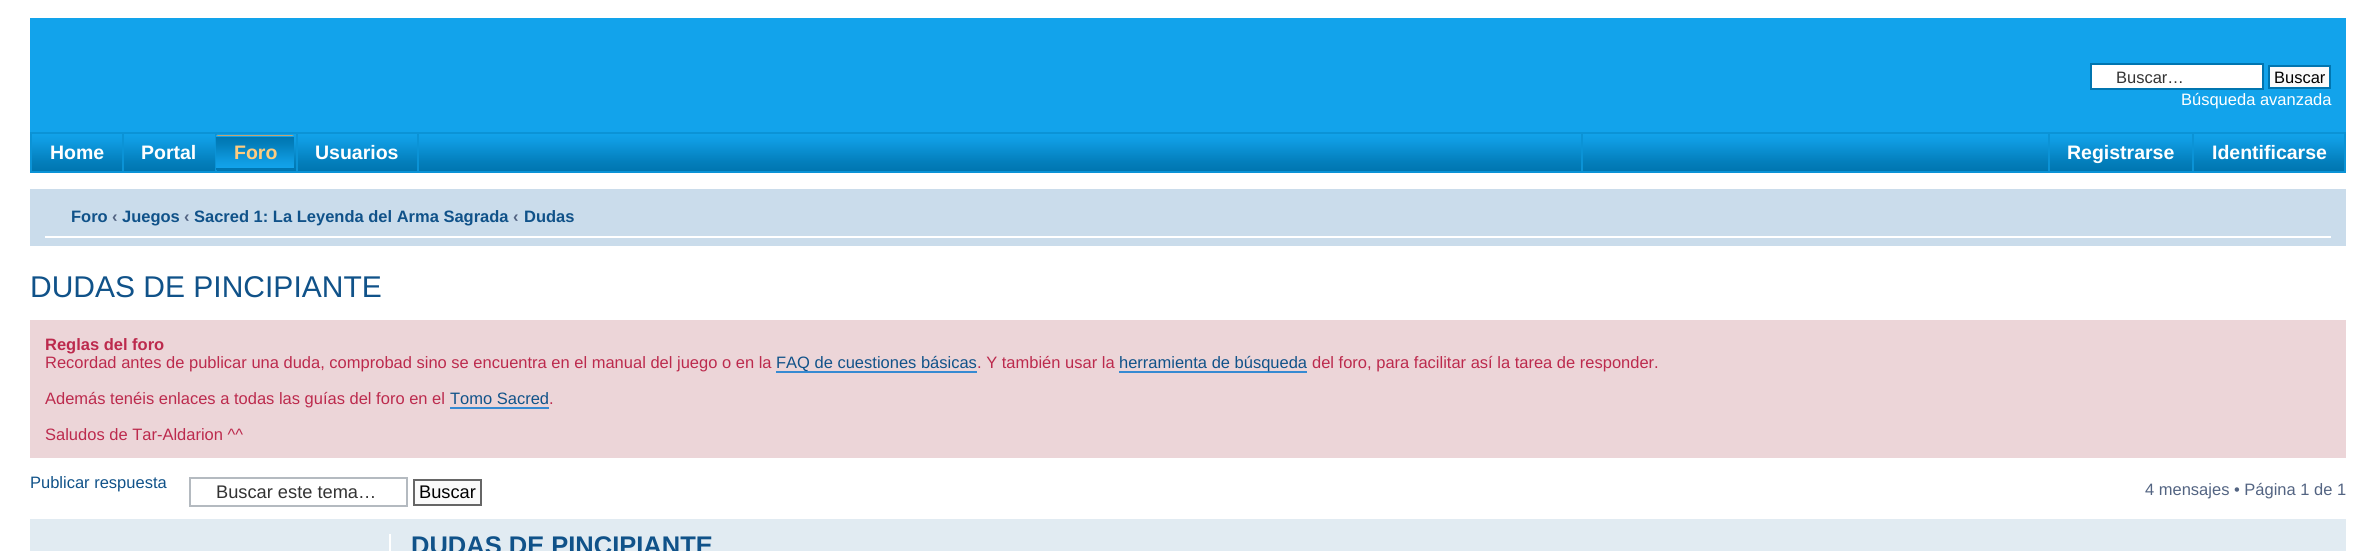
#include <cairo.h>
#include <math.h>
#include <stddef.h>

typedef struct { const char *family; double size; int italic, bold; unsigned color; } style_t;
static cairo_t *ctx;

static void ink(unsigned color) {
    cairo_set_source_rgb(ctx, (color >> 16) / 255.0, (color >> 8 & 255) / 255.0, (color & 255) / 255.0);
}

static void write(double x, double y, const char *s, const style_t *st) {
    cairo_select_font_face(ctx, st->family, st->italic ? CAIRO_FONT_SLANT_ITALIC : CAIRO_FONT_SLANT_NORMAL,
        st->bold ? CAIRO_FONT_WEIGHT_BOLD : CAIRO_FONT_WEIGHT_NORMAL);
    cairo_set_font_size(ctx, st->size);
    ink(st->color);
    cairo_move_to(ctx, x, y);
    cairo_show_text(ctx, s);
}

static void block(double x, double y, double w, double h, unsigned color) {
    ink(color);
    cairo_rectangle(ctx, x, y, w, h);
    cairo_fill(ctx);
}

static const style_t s1 = {"Liberation Sans", 16.5, 0, 0, 0x333333};
static const style_t s2 = {"Liberation Sans", 16.5, 0, 0, 0x000000};
static const style_t s3 = {"Liberation Sans", 16.5, 0, 0, 0xffffff};
static const style_t s4 = {"Liberation Sans", 19.5, 0, 1, 0xffffff};
static const style_t s5 = {"Liberation Sans", 19.5, 0, 1, 0xffcc7f};
static const style_t s6 = {"Liberation Sans", 16.5, 0, 1, 0x105289};
static const style_t s7 = {"Liberation Sans", 16.5, 0, 1, 0x536482};
static const style_t s8 = {"Liberation Sans", 30, 0, 0, 0x105289};
static const style_t s9 = {"Liberation Sans", 16.5, 0, 1, 0xbc2a4d};
static const style_t s10 = {"Liberation Sans", 16.5, 0, 0, 0xbc2a4d};
static const style_t s11 = {"Liberation Sans", 16.5, 0, 0, 0x105289};
static const style_t s12 = {"Liberation Sans", 18.25, 0, 0, 0x333333};
static const style_t s13 = {"Liberation Sans", 18.25, 0, 0, 0x000000};
static const style_t s14 = {"Liberation Sans", 16.5, 0, 0, 0x536482};
static const style_t s15 = {"Liberation Sans", 25.5, 0, 1, 0x105289};

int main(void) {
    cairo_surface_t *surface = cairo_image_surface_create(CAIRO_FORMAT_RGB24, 2375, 551);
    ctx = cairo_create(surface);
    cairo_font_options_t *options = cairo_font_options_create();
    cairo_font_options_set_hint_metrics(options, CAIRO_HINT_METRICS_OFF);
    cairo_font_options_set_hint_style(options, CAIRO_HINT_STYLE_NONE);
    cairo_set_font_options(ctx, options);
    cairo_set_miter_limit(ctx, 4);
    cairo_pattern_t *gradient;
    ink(0xffffff);
    cairo_paint(ctx);
    block(30, 18, 2316, 114, 0x12a3eb);
    ink(0xffffff);
    cairo_rectangle(ctx, 2091, 64, 172, 25);
    cairo_fill_preserve(ctx);
    ink(0x0075b0);
    cairo_stroke(ctx);
    write(2116, 83, "Buscar…", &s1);
    ink(0xfafafa);
    cairo_rectangle(ctx, 2269, 66, 61, 22);
    cairo_fill_preserve(ctx);
    ink(0x0075b0);
    cairo_stroke(ctx);
    write(2274, 83, "Buscar", &s2);
    write(2181, 105, "Búsqueda avanzada", &s3);
    gradient = cairo_pattern_create_linear(1188, 133, 1188, 171);
    cairo_pattern_add_color_stop_rgba(gradient, 0, 0.071, 0.639, 0.922, 1);
    cairo_pattern_add_color_stop_rgba(gradient, 0.22, 0.059, 0.608, 0.882, 1);
    cairo_pattern_add_color_stop_rgba(gradient, 0.77, 0.012, 0.494, 0.733, 1);
    cairo_pattern_add_color_stop_rgba(gradient, 0.99, 0, 0.463, 0.694, 1);
    cairo_pattern_add_color_stop_rgba(gradient, 1, 0.416, 0.808, 1, 1);
    cairo_set_source(ctx, gradient);
    cairo_pattern_destroy(gradient);
    cairo_rectangle(ctx, 32, 134, 2312, 37);
    cairo_fill(ctx);
    cairo_rectangle(ctx, 31, 133, 2314, 39);
    ink(0x0b93d6);
    cairo_stroke(ctx);
    block(122, 134, 2, 37, 0x0b93d6);
    write(50, 159, "Home", &s4);
    block(215, 134, 2, 37, 0x0b93d6);
    write(141, 159, "Portal", &s4);
    block(296, 134, 2, 37, 0x0b93d6);
    gradient = cairo_pattern_create_linear(255, 105, 255, 137);
    cairo_pattern_add_color_stop_rgba(gradient, 0, 0.416, 0.808, 1, 1);
    cairo_pattern_add_color_stop_rgba(gradient, 0.01, 0, 0.463, 0.694, 1);
    cairo_pattern_add_color_stop_rgba(gradient, 0.23, 0.012, 0.494, 0.733, 1);
    cairo_pattern_add_color_stop_rgba(gradient, 0.78, 0.059, 0.608, 0.882, 1);
    cairo_pattern_add_color_stop_rgba(gradient, 1, 0.071, 0.639, 0.922, 1);
    cairo_set_source(ctx, gradient);
    cairo_pattern_destroy(gradient);
    cairo_rectangle(ctx, 216, 135, 78, 2);
    cairo_fill(ctx);
    gradient = cairo_pattern_create_linear(255, 137, 255, 168);
    cairo_pattern_add_color_stop_rgba(gradient, 0, 0.416, 0.808, 1, 1);
    cairo_pattern_add_color_stop_rgba(gradient, 0.01, 0, 0.463, 0.694, 1);
    cairo_pattern_add_color_stop_rgba(gradient, 0.23, 0.012, 0.494, 0.733, 1);
    cairo_pattern_add_color_stop_rgba(gradient, 0.78, 0.059, 0.608, 0.882, 1);
    cairo_pattern_add_color_stop_rgba(gradient, 1, 0.071, 0.639, 0.922, 1);
    cairo_set_source(ctx, gradient);
    cairo_pattern_destroy(gradient);
    cairo_rectangle(ctx, 216, 137, 78, 31);
    cairo_fill(ctx);
    gradient = cairo_pattern_create_linear(255, 168, 255, 200);
    cairo_pattern_add_color_stop_rgba(gradient, 0, 0.416, 0.808, 1, 1);
    cairo_pattern_add_color_stop_rgba(gradient, 0.01, 0, 0.463, 0.694, 1);
    cairo_pattern_add_color_stop_rgba(gradient, 0.23, 0.012, 0.494, 0.733, 1);
    cairo_pattern_add_color_stop_rgba(gradient, 0.78, 0.059, 0.608, 0.882, 1);
    cairo_pattern_add_color_stop_rgba(gradient, 1, 0.071, 0.639, 0.922, 1);
    cairo_set_source(ctx, gradient);
    cairo_pattern_destroy(gradient);
    cairo_rectangle(ctx, 216, 168, 78, 2);
    cairo_fill(ctx);
    ink(0xc4a371);
    cairo_new_path(ctx);
    cairo_move_to(ctx, 216, 135);
    cairo_line_to(ctx, 294, 135);
    cairo_line_to(ctx, 292, 136);
    cairo_line_to(ctx, 218, 136);
    cairo_close_path(ctx);
    cairo_fill(ctx);
    write(234, 159, "Foro", &s5);
    block(417, 134, 2, 37, 0x0b93d6);
    write(315, 159, "Usuarios", &s4);
    block(1581, 134, 2, 37, 0x0b93d6);
    block(2048, 134, 2, 37, 0x0b93d6);
    block(2192, 134, 2, 37, 0x0b93d6);
    write(2067, 159, "Registrarse", &s4);
    write(2212, 159, "Identificarse", &s4);
    block(30, 189, 2316, 57, 0xcadceb);
    block(45, 236, 2286, 2, 0xffffff);
    write(71, 222, "Foro", &s6);
    write(112, 222, "‹", &s7);
    write(122, 222, "Juegos", &s6);
    write(184, 222, "‹", &s7);
    write(194, 222, "Sacred 1: La Leyenda del Arma Sagrada", &s6);
    write(513, 222, "‹", &s7);
    write(524, 222, "Dudas", &s6);
    write(30, 297, "DUDAS DE PINCIPIANTE", &s8);
    block(30, 320, 2316, 138, 0xecd5d8);
    write(45, 350, "Reglas del foro", &s9);
    write(45, 368, "Recordad antes de publicar una duda, comprobad sino se encuentra en el manual del juego o en la", &s10);
    block(776, 371, 201, 2, 0x368ad2);
    write(776, 368, "FAQ de cuestiones básicas", &s11);
    write(977, 368, ". Y también usar la", &s10);
    block(1119, 371, 188, 2, 0x368ad2);
    write(1119, 368, "herramienta de búsqueda", &s11);
    write(1312, 368, "del foro, para facilitar así la tarea de responder.", &s10);
    write(45, 404, "Además tenéis enlaces a todas las guías del foro en el", &s10);
    write(450, 404, "Tomo Sacred", &s11);
    block(450, 407, 99, 2, 0x368ad2);
    write(549, 404, ".", &s10);
    write(45, 440, "Saludos de Tar-Aldarion ^^", &s10);
    write(30, 488, "Publicar respuesta", &s11);
    cairo_rectangle(ctx, 190, 478, 217, 28);
    ink(0xb4bac0);
    cairo_stroke(ctx);
    write(216, 498, "Buscar este tema…", &s12);
    ink(0xfafafa);
    cairo_rectangle(ctx, 414, 480, 67, 25);
    cairo_fill_preserve(ctx);
    ink(0x666666);
    cairo_stroke(ctx);
    write(419, 498, "Buscar", &s13);
    write(2145, 495, "4 mensajes • Página 1 de 1", &s14);
    block(30, 519, 2316, 32, 0xe1ebf2);
    block(389, 534, 2, 17, 0xffffff);
    write(411, 554, "DUDAS DE PINCIPIANTE", &s15);
    cairo_surface_write_to_png(surface, "screenshot.png");
    cairo_font_options_destroy(options);
    cairo_destroy(ctx);
    cairo_surface_destroy(surface);
    return 0;
}
